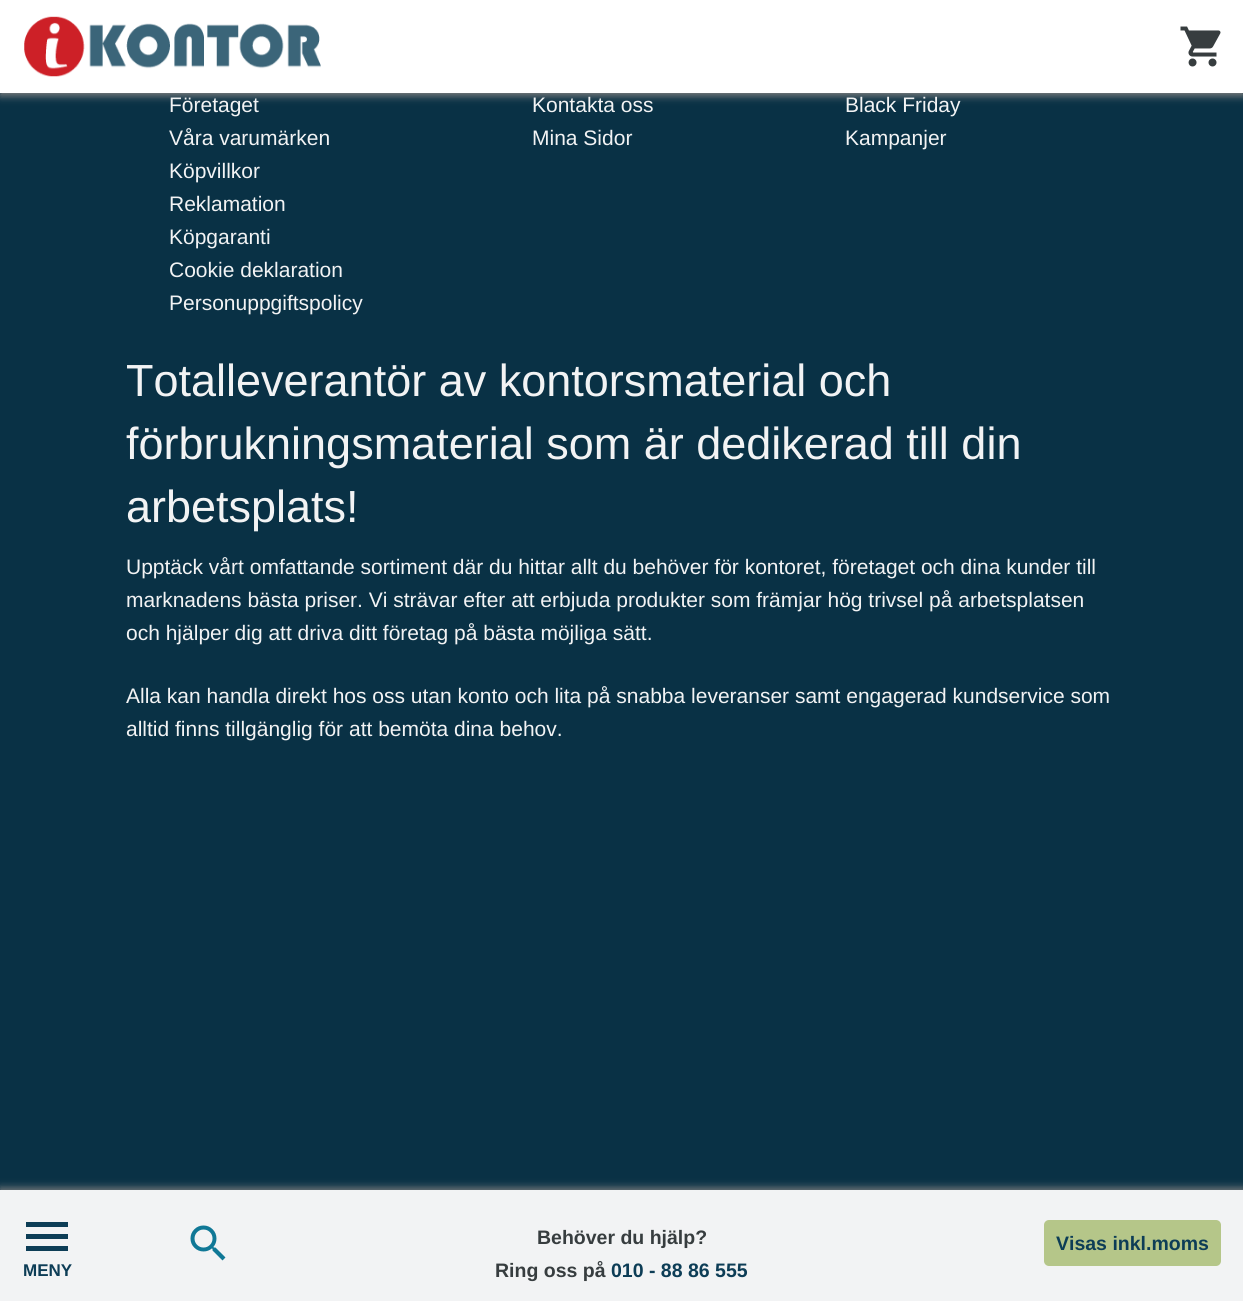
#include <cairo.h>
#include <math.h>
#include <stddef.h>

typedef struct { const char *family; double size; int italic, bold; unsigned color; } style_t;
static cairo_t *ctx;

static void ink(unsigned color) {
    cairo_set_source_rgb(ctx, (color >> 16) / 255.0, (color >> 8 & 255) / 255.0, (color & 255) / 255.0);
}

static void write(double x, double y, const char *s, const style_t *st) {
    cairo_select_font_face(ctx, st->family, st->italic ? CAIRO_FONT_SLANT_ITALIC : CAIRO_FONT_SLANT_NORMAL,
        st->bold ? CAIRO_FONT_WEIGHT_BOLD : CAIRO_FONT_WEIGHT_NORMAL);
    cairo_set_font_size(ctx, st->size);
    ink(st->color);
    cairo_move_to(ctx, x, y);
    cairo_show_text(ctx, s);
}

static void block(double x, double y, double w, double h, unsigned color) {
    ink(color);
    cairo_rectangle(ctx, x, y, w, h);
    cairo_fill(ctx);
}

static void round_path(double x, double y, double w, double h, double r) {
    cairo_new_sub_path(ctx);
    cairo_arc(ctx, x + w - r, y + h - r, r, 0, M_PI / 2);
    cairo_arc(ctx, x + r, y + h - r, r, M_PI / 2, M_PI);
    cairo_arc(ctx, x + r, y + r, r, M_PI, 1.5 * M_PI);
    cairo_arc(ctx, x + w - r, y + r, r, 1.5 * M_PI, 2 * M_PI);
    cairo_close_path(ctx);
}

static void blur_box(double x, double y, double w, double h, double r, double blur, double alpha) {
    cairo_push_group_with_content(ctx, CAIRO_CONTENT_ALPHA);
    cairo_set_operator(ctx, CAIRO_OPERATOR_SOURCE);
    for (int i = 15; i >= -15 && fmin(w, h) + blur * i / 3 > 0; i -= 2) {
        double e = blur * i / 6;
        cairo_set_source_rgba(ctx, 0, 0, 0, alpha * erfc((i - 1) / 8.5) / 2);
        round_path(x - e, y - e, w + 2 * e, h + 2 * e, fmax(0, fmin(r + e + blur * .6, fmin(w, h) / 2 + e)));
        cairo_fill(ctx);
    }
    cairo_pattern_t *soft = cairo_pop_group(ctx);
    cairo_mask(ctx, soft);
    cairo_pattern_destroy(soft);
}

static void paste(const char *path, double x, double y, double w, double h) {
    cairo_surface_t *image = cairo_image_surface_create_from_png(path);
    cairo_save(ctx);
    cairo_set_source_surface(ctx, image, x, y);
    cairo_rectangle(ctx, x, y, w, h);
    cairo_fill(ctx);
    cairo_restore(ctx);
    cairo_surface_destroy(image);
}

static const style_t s1 = {"Liberation Sans", 21, 0, 0, 0xf2f3f4};
static const style_t s2 = {"Liberation Sans", 45, 0, 0, 0xf2f3f4};
static const style_t s3 = {"Liberation Sans", 19.5, 0, 1, 0x373d3f};
static const style_t s4 = {"Liberation Sans", 19.5, 0, 1, 0x0d3d56};
static const style_t s5 = {"Liberation Sans", 17, 0, 1, 0x0d3d56};

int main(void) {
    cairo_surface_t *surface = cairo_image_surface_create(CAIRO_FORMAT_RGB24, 1243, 1301);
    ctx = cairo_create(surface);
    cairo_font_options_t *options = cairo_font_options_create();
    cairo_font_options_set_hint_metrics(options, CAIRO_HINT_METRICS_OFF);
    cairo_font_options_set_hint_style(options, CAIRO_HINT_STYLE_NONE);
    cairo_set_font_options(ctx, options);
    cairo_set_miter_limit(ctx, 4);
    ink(0x093145);
    cairo_paint(ctx);
    ink(0x808080);
    blur_box(0, 3, 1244, 93, 0, 4, 1);
    block(0, 0, 1243, 93, 0xffffff);
    paste("pic1.png", 24, 16, 297, 61);
    paste("pic2.png", 1180, 26, 41, 41);
    write(169, 112, "Företaget", &s1);
    write(169, 145, "Våra varumärken", &s1);
    write(169, 178, "Köpvillkor", &s1);
    write(169, 211, "Reklamation", &s1);
    write(169, 244, "Köpgaranti", &s1);
    write(169, 277, "Cookie deklaration", &s1);
    write(169, 310, "Personuppgiftspolicy", &s1);
    write(532, 112, "Kontakta oss", &s1);
    write(532, 145, "Mina Sidor", &s1);
    write(845, 112, "Black Friday", &s1);
    write(845, 145, "Kampanjer", &s1);
    write(126, 396, "Totalleverantör av kontorsmaterial och", &s2);
    write(126, 459, "förbrukningsmaterial som är dedikerad till din", &s2);
    write(126, 522, "arbetsplats!", &s2);
    write(126, 574, "Upptäck vårt omfattande sortiment där du hittar allt du behöver för kontoret, företaget och dina kunder till", &s1);
    write(126, 607, "marknadens bästa priser. Vi strävar efter att erbjuda produkter som främjar hög trivsel på arbetsplatsen", &s1);
    write(126, 640, "och hjälper dig att driva ditt företag på bästa möjliga sätt.", &s1);
    write(126, 703, "Alla kan handla direkt hos oss utan konto och lita på snabba leveranser samt engagerad kundservice som", &s1);
    write(126, 736, "alltid finns tillgänglig för att bemöta dina behov.", &s1);
    ink(0x808080);
    blur_box(0, 1188, 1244, 113, 0, 4, 1);
    block(0, 1190, 1243, 111, 0xf2f3f4);
    paste("pic3.png", 190, 1225, 36, 36);
    write(537, 1244, "Behöver du hjälp?", &s3);
    write(495, 1277, "Ring oss på", &s3);
    write(611, 1277, "010 - 88 86 555", &s4);
    ink(0xb5c689);
    round_path(1044, 1220, 177, 46, 5);
    cairo_fill(ctx);
    write(1056, 1250, "Visas inkl.moms", &s4);
    cairo_new_path(ctx);
    cairo_move_to(ctx, 26, 1251);
    cairo_line_to(ctx, 26, 1246);
    cairo_line_to(ctx, 68, 1246);
    cairo_line_to(ctx, 68, 1251);
    cairo_close_path(ctx);
    cairo_move_to(ctx, 26, 1239);
    cairo_line_to(ctx, 26, 1234);
    cairo_line_to(ctx, 68, 1234);
    cairo_line_to(ctx, 68, 1239);
    cairo_close_path(ctx);
    cairo_move_to(ctx, 26, 1222);
    cairo_line_to(ctx, 68, 1222);
    cairo_line_to(ctx, 68, 1227);
    cairo_line_to(ctx, 26, 1227);
    cairo_close_path(ctx);
    cairo_fill(ctx);
    write(23, 1276, "MENY", &s5);
    cairo_surface_write_to_png(surface, "screenshot.png");
    cairo_font_options_destroy(options);
    cairo_destroy(ctx);
    cairo_surface_destroy(surface);
    return 0;
}
